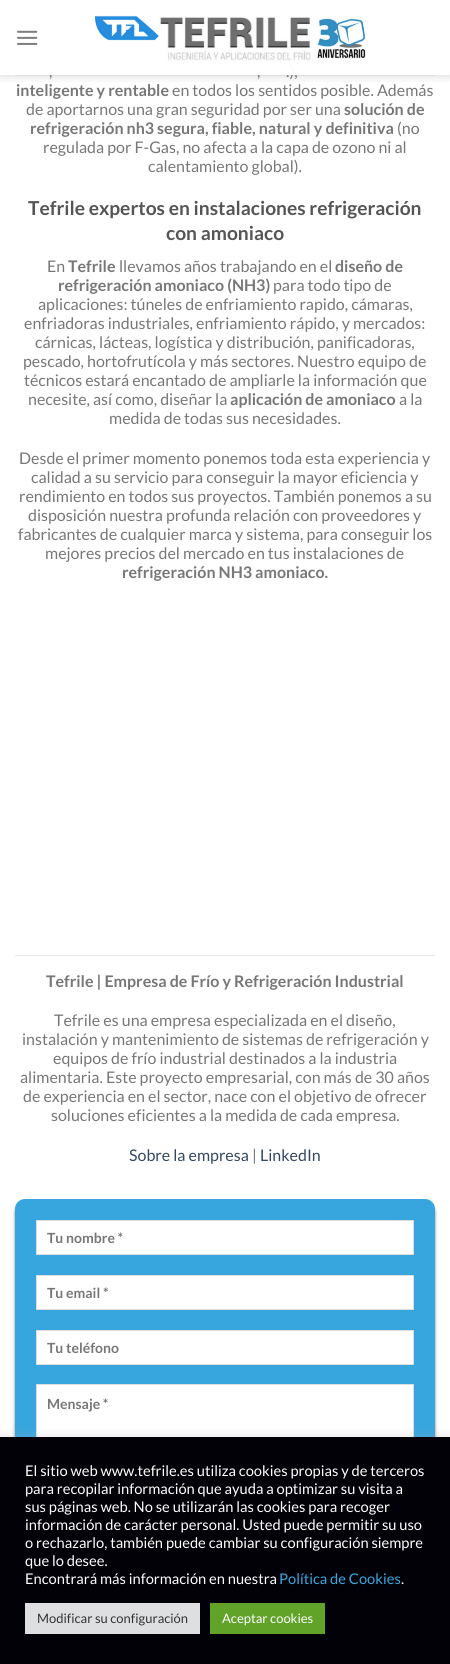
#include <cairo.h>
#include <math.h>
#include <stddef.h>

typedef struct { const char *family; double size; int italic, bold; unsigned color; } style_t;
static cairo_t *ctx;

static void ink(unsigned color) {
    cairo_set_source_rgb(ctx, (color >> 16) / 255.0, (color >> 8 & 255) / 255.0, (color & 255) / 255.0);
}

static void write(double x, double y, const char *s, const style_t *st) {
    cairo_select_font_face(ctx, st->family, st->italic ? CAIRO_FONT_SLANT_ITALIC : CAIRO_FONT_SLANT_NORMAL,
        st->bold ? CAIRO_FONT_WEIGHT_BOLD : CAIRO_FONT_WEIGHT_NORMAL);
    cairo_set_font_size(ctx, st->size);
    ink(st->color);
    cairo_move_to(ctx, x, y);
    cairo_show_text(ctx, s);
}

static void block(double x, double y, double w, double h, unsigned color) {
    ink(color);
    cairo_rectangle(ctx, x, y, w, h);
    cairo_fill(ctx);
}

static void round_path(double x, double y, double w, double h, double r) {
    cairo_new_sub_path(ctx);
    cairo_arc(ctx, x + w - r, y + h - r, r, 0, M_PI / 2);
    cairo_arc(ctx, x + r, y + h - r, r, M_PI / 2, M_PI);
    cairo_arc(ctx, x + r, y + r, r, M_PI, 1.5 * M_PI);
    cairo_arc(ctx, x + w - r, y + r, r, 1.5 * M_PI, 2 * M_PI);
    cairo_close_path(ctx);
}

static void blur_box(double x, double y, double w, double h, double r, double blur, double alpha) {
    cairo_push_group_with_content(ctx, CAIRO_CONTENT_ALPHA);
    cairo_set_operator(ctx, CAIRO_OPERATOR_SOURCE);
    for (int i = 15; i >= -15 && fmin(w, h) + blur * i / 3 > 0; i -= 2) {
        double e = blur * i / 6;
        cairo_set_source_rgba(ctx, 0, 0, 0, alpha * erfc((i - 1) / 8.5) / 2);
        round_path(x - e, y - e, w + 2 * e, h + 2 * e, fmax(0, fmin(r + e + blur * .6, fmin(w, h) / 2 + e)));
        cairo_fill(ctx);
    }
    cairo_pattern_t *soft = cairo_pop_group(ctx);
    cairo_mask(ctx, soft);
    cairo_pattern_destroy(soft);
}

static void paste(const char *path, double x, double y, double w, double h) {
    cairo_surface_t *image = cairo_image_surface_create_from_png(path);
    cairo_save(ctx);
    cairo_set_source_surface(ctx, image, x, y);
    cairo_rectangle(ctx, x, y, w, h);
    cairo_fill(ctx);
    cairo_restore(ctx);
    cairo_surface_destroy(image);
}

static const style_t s1 = {"Lato", 16, 0, 0, 0x777777};
static const style_t s2 = {"Lato", 16, 0, 1, 0x777777};
static const style_t s3 = {"Lato", 19.2, 0, 1, 0x555555};
static const style_t s4 = {"Lato", 16, 0, 0, 0x334862};
static const style_t s5 = {"Lato", 14, 0, 1, 0x777777};
static const style_t s6 = {"Lato", 14.7, 0, 0, 0xffffff};
static const style_t s7 = {"Lato", 14.7, 0, 0, 0x36a9e1};
static const style_t s8 = {"Lato", 13, 0, 0, 0x333333};
static const style_t s9 = {"Lato", 13, 0, 0, 0xffffff};

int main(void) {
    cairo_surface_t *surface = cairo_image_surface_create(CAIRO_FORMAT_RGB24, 450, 1664);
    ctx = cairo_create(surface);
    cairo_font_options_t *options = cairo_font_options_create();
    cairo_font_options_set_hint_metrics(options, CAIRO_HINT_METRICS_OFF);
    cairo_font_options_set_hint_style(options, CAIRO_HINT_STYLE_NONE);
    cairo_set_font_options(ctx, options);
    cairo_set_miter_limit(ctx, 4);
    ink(0xffffff);
    cairo_paint(ctx);
    cairo_save(ctx);
    cairo_rectangle(ctx, 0, 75, 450, 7);
    cairo_clip(ctx);
    ink(0x000000);
    blur_box(1, 1, 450, 75, 0, 5, 0.15);
    cairo_restore(ctx);
    write(286, 77, ".),", &s1);
    cairo_set_source_rgba(ctx, 1, 1, 1, 0.9);
    cairo_rectangle(ctx, 289, 64, 4, 11);
    cairo_fill(ctx);
    paste("pic1.png", 17, 30, 21, 15);
    paste("pic2.png", 94, 15, 272, 47);
    cairo_set_source_rgba(ctx, 0.467, 0.467, 0.467, 0.1);
    cairo_rectangle(ctx, 15, 75, 420, 1);
    cairo_fill(ctx);
    cairo_set_source_rgba(ctx, 1, 1, 1, 0.9);
    cairo_rectangle(ctx, 289, 65, 4, 10);
    cairo_fill(ctx);
    write(49, 77, ",", &s1);
    write(257, 77, ",", &s1);
    write(16, 96, "inteligente y rentable", &s2);
    write(172, 96, "en todos los sentidos posible. Además", &s1);
    write(26, 115, "de aportarnos una gran seguridad por ser una", &s1);
    write(344, 115, "solución de", &s2);
    write(30, 134, "refrigeración nh3 segura, fiable, natural y definitiva", &s2);
    write(397, 134, "(no", &s1);
    write(43, 153, "regulada por F-Gas, no afecta a la capa de ozono ni al", &s1);
    write(148, 172, "calentamiento global).", &s1);
    write(28, 215, "Tefrile expertos en instalaciones refrigeración", &s3);
    write(166, 240, "con amoniaco", &s3);
    write(47, 272, "En", &s1);
    write(68, 272, "Tefrile", &s2);
    write(119, 272, "llevamos años trabajando en el", &s1);
    write(335, 272, "diseño de", &s2);
    write(58, 291, "refrigeración amoniaco (NH3)", &s2);
    write(273, 291, "para todo tipo de", &s1);
    write(38, 310, "aplicaciones: túneles de enfriamiento rapido, cámaras,", &s1);
    write(24, 329, "enfriadoras industriales, enfriamiento rápido, y mercados:", &s1);
    write(35, 348, "cárnicas, lácteas, logística y distribución, panificadoras,", &s1);
    write(23, 367, "pescado, hortofrutícola y más sectores. Nuestro equipo de", &s1);
    write(24, 386, "técnicos estará encantado de ampliarle la información que", &s1);
    write(28, 405, "necesite, así como, diseñar la", &s1);
    write(230, 405, "aplicación de amoniaco", &s2);
    write(399, 405, "a la", &s1);
    write(109, 424, "medida de todas sus necesidades.", &s1);
    write(19, 464, "Desde el primer momento ponemos toda esta experiencia y", &s1);
    write(31, 483, "calidad a su servicio para conseguir la mayor eficiencia y", &s1);
    write(19, 502, "rendimiento en todos sus proyectos. También ponemos a su", &s1);
    write(28, 521, "disposición nuestra profunda relación con proveedores y", &s1);
    write(18, 540, "fabricantes de cualquier marca y sistema, para conseguir los", &s1);
    write(45, 559, "mejores precios del mercado en tus instalaciones de", &s1);
    write(122, 578, "refrigeración NH3 amoniaco.", &s2);
    block(15, 955, 420, 1, 0xe8e8e8);
    write(46, 987, "Tefrile | Empresa de Frío y Refrigeración Industrial", &s2);
    write(54, 1026, "Tefrile es una empresa especializada en el diseño,", &s1);
    write(22, 1045, "instalación y mantenimiento de sistemas de refrigeración y", &s1);
    write(53, 1064, "equipos de frío industrial destinados a la industria", &s1);
    write(20, 1083, "alimentaria. Este proyecto empresarial, con más de 30 años", &s1);
    write(23, 1102, "de experiencia en el sector, nace con el objetivo de ofrecer", &s1);
    write(51, 1121, "soluciones eficientes a la medida de cada empresa.", &s1);
    write(129, 1161, "Sobre la empresa", &s4);
    write(252, 1161, "|", &s1);
    write(260, 1161, "LinkedIn", &s4);
    ink(0x000000);
    blur_box(15, 1203, 420, 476, 10, 1.5, 0.5);
    ink(0x37a6de);
    round_path(15, 1199, 420, 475, 10);
    cairo_fill(ctx);
    ink(0xffffff);
    cairo_rectangle(ctx, 36.5, 1220.5, 377, 34);
    cairo_fill_preserve(ctx);
    ink(0xdddddd);
    cairo_set_line_width(ctx, 1);
    cairo_stroke(ctx);
    write(47, 1243, "Tu nombre *", &s5);
    ink(0xffffff);
    cairo_rectangle(ctx, 36.5, 1275.5, 377, 34);
    cairo_fill_preserve(ctx);
    ink(0xdddddd);
    cairo_stroke(ctx);
    write(47, 1298, "Tu email *", &s5);
    ink(0xffffff);
    cairo_rectangle(ctx, 36.5, 1330.5, 377, 34);
    cairo_fill_preserve(ctx);
    ink(0xdddddd);
    cairo_stroke(ctx);
    write(47, 1353, "Tu teléfono", &s5);
    block(37, 1385, 376, 52, 0xffffff);
    cairo_rectangle(ctx, 36.5, 1384.5, 377, 119);
    ink(0xdddddd);
    cairo_stroke(ctx);
    write(47, 1409, "Mensaje *", &s5);
    ink(0xacabab);
    blur_box(0, 1436, 450, 227, 0, 5, 0.3);
    block(0, 1437, 450, 227, 0x010107);
    write(25, 1476, "El sitio web www.tefrile.es utiliza cookies propias y de terceros", &s6);
    write(25, 1494, "para recopilar información que ayuda a optimizar su visita a", &s6);
    write(25, 1512, "sus páginas web. No se utilizarán las cookies para recoger", &s6);
    write(25, 1530, "información de carácter personal. Usted puede permitir su uso", &s6);
    write(25, 1548, "o rechazarlo, también puede cambiar su configuración siempre", &s6);
    write(25, 1566, "que lo desee.", &s6);
    write(25, 1584, "Encontrará más información en nuestra", &s6);
    write(279, 1584, "Política de Cookies", &s7);
    write(401, 1584, ".", &s6);
    block(25, 1603, 175, 31, 0xdedfe0);
    write(37, 1623, "Modificar su configuración", &s8);
    block(210, 1603, 115, 31, 0x61a229);
    write(222, 1623, "Aceptar cookies", &s9);
    cairo_surface_write_to_png(surface, "screenshot.png");
    cairo_font_options_destroy(options);
    cairo_destroy(ctx);
    cairo_surface_destroy(surface);
    return 0;
}
